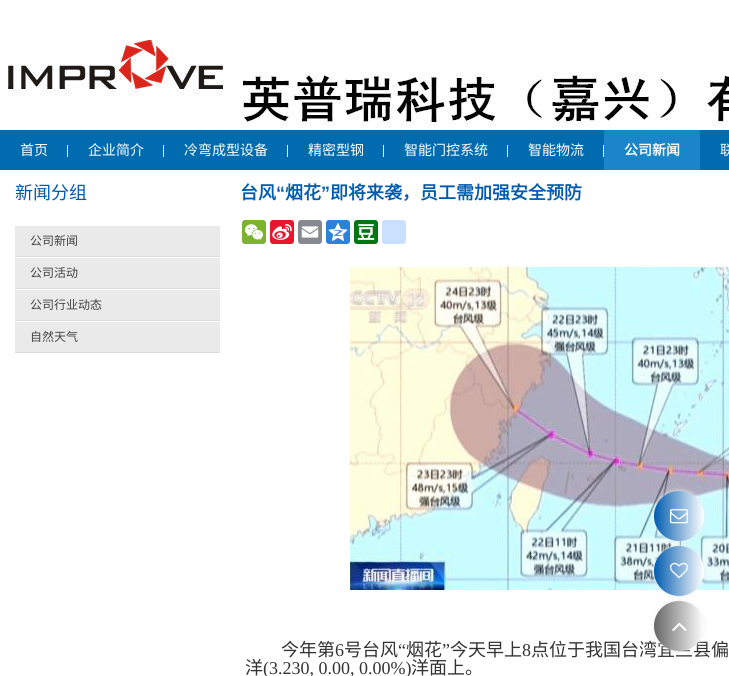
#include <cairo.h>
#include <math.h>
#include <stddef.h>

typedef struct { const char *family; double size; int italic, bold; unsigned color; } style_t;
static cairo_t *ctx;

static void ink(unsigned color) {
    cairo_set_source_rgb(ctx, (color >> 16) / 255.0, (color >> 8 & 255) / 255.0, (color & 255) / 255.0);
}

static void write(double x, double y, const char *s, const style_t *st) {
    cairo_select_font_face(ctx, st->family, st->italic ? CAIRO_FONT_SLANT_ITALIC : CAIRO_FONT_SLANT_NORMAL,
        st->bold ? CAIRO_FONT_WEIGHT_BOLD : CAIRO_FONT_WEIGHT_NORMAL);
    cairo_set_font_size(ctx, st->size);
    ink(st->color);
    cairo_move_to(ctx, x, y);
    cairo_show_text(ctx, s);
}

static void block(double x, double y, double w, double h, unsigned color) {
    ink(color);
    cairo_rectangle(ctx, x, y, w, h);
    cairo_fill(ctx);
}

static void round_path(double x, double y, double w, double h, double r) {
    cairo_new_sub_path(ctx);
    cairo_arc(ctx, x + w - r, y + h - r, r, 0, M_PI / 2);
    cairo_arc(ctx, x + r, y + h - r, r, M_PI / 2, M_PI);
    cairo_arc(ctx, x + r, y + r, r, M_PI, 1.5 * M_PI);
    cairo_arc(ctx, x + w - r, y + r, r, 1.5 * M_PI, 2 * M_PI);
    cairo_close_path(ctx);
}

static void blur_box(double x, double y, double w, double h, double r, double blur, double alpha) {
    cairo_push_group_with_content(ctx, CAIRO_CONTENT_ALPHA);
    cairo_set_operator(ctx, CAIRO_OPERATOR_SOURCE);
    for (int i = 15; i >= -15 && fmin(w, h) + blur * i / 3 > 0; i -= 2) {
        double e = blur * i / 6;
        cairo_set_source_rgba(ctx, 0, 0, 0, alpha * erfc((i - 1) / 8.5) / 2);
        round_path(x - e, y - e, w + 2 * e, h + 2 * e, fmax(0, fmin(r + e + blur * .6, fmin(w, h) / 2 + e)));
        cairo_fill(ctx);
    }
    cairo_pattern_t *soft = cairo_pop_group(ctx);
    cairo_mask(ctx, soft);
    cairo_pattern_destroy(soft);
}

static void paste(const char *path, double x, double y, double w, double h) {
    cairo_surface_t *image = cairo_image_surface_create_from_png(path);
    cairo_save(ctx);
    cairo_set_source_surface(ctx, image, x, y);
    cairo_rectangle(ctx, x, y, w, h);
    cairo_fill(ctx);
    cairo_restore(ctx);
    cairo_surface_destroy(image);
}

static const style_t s1 = {"Noto Sans CJK SC", 14, 0, 0, 0xffffff};
static const style_t s2 = {"Noto Sans CJK SC", 14, 0, 1, 0xffffff};
static const style_t s3 = {"Noto Sans CJK SC", 18, 0, 0, 0x005bb0};
static const style_t s4 = {"Noto Sans CJK SC", 12, 0, 0, 0x444444};
static const style_t s5 = {"Noto Sans CJK SC", 18, 0, 1, 0x005bb0};
static const style_t s6 = {"Liberation Sans", 18, 0, 1, 0x005bb0};
static const style_t s7 = {"Noto Sans CJK SC", 18, 0, 0, 0x333333};
static const style_t s8 = {"Liberation Serif", 18, 0, 0, 0x333333};

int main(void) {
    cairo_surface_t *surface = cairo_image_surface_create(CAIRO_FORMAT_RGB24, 729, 676);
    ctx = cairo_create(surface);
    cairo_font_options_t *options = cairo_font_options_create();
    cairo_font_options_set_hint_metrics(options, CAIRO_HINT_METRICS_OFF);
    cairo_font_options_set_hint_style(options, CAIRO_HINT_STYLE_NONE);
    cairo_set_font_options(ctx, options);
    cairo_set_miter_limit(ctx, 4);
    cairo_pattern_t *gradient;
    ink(0xffffff);
    cairo_paint(ctx);
    paste("pic1.png", 8, 40, 721, 88);
    block(0, 130, 729, 40, 0x006baf);
    block(67, 145, 1, 12, 0xe5f0f6);
    write(20, 155, "首页", &s1);
    block(163, 145, 1, 12, 0xe5f0f6);
    write(88, 155, "企业简介", &s1);
    block(287, 145, 1, 12, 0xe5f0f6);
    write(184, 155, "冷弯成型设备", &s1);
    block(383, 145, 1, 12, 0xe5f0f6);
    write(308, 155, "精密型钢", &s1);
    block(507, 145, 1, 12, 0xe5f0f6);
    write(404, 155, "智能门控系统", &s1);
    block(603, 145, 1, 12, 0xe5f0f6);
    write(528, 155, "智能物流", &s1);
    block(604, 130, 96, 40, 0x1a85c9);
    write(624, 155, "公司新闻", &s2);
    write(720, 155, "联", &s1);
    write(15, 199, "新闻分组", &s3);
    block(15, 226, 205, 30, 0xeaeaea);
    block(15, 256, 205, 1, 0xdadada);
    write(30, 245, "公司新闻", &s4);
    block(15, 258, 205, 30, 0xeaeaea);
    block(15, 288, 205, 1, 0xdadada);
    write(30, 277, "公司活动", &s4);
    block(15, 290, 205, 30, 0xeaeaea);
    block(15, 320, 205, 1, 0xdadada);
    write(30, 309, "公司行业动态", &s4);
    block(15, 322, 205, 30, 0xeaeaea);
    block(15, 352, 205, 1, 0xdadada);
    write(30, 341, "自然天气", &s4);
    write(240, 199, "台风", &s5);
    write(276, 199, "“", &s6);
    write(285, 199, "烟花", &s5);
    write(321, 199, "”", &s6);
    write(330, 199, "即将来袭，员工需加强安全预防", &s5);
    ink(0x7bb32e);
    round_path(242, 220, 24, 24, 3);
    cairo_fill(ctx);
    paste("pic2.png", 245, 224, 18, 16);
    ink(0xe6162d);
    round_path(270, 220, 24, 24, 3);
    cairo_fill(ctx);
    paste("pic3.png", 272, 224, 20, 16);
    ink(0x888990);
    round_path(298, 220, 24, 24, 3);
    cairo_fill(ctx);
    paste("pic4.png", 301, 226, 18, 12);
    ink(0x2b82d9);
    round_path(326, 220, 24, 24, 3);
    cairo_fill(ctx);
    paste("pic5.png", 328, 223, 20, 18);
    ink(0x007711);
    round_path(354, 220, 24, 24, 3);
    cairo_fill(ctx);
    paste("pic6.png", 357, 224, 18, 16);
    ink(0xcae0ff);
    round_path(382, 220, 24, 24, 3);
    cairo_fill(ctx);
    paste("pic7.png", 350, 267, 379, 323);
    write(281, 656, "今年第", &s7);
    write(335, 656, "6", &s8);
    write(344, 656, "号台风", &s7);
    write(398, 656, "“", &s8);
    write(406, 656, "烟花", &s7);
    write(442, 656, "”", &s8);
    write(450, 656, "今天早上", &s7);
    write(522, 656, "8", &s8);
    write(531, 656, "点位于我国台湾宜兰县偏", &s7);
    write(245, 674, "洋", &s7);
    write(263, 674, "(3.230, 0.00, 0.00%)", &s8);
    write(411, 674, "洋面上。", &s7);
    ink(0xeeeeee);
    blur_box(654, 491, 50, 50, 25, 2.5, 1);
    gradient = cairo_pattern_create_linear(654, 516, 704, 516);
    cairo_pattern_add_color_stop_rgba(gradient, 0, 0, 0.357, 0.69, 1);
    cairo_pattern_add_color_stop_rgba(gradient, 1, 1, 1, 1, 1);
    cairo_set_source(ctx, gradient);
    cairo_pattern_destroy(gradient);
    cairo_arc(ctx, 679, 516, 25, 0, 2 * M_PI);
    cairo_fill(ctx);
    paste("pic8.png", 670, 509, 18, 15);
    ink(0xeeeeee);
    blur_box(654, 546, 50, 50, 25, 2.5, 1);
    gradient = cairo_pattern_create_linear(654, 571, 704, 571);
    cairo_pattern_add_color_stop_rgba(gradient, 0, 0, 0.357, 0.69, 1);
    cairo_pattern_add_color_stop_rgba(gradient, 1, 1, 1, 1, 1);
    cairo_set_source(ctx, gradient);
    cairo_pattern_destroy(gradient);
    cairo_arc(ctx, 679, 571, 25, 0, 2 * M_PI);
    cairo_fill(ctx);
    paste("pic9.png", 670, 562, 18, 17);
    ink(0xeeeeee);
    blur_box(654, 601, 50, 50, 25, 2.5, 1);
    gradient = cairo_pattern_create_linear(654, 626, 704, 626);
    cairo_pattern_add_color_stop_rgba(gradient, 0, 0.4, 0.4, 0.4, 1);
    cairo_pattern_add_color_stop_rgba(gradient, 1, 1, 1, 1, 1);
    cairo_set_source(ctx, gradient);
    cairo_pattern_destroy(gradient);
    cairo_arc(ctx, 679, 626, 25, 0, 2 * M_PI);
    cairo_fill(ctx);
    paste("pic10.png", 672, 622, 15, 9);
    cairo_surface_write_to_png(surface, "screenshot.png");
    cairo_font_options_destroy(options);
    cairo_destroy(ctx);
    cairo_surface_destroy(surface);
    return 0;
}
